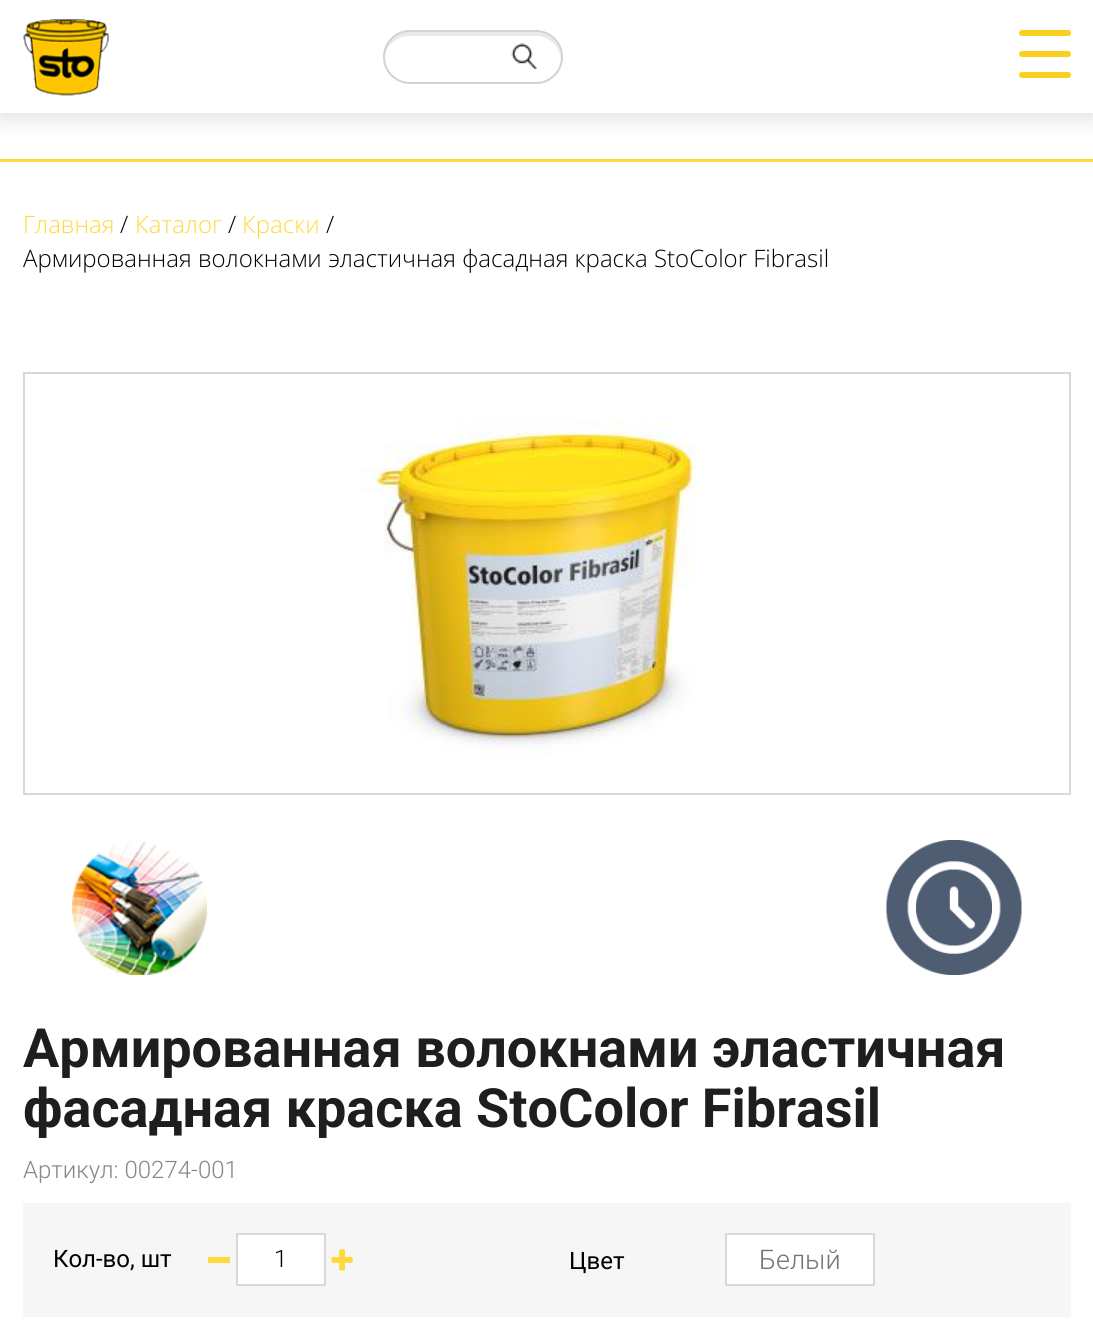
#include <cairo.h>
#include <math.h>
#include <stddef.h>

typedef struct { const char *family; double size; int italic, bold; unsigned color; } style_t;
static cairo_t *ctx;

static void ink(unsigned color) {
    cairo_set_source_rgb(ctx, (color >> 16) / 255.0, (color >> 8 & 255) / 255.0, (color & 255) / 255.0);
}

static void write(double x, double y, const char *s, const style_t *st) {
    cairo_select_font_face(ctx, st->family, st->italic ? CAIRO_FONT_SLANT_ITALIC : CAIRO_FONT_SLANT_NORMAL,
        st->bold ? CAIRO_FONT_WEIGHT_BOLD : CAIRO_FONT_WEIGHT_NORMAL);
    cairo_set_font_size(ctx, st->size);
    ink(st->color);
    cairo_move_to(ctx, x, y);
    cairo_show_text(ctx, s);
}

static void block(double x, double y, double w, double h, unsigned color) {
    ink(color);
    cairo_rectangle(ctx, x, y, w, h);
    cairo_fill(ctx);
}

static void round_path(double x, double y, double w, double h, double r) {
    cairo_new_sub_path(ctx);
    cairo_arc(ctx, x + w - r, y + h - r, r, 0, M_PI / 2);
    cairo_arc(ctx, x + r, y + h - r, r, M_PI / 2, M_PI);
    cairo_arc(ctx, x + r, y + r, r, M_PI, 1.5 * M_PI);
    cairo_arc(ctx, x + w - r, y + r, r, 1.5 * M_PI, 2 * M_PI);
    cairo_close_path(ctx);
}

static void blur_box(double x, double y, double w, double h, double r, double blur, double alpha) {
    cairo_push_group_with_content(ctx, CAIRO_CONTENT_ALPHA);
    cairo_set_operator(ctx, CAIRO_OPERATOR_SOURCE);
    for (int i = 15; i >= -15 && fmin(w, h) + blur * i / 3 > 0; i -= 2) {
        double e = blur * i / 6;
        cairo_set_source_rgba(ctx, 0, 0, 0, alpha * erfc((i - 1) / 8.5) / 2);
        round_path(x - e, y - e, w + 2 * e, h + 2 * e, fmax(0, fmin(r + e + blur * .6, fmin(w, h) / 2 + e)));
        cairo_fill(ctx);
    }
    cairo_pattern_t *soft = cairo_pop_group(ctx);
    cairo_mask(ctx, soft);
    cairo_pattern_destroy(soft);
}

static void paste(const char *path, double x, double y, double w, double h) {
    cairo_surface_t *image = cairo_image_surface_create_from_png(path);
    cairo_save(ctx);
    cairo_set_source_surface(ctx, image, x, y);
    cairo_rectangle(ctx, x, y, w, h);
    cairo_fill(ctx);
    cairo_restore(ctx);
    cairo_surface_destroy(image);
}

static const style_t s1 = {"Open Sans Light", 24, 0, 0, 0xffd93c};
static const style_t s2 = {"Open Sans Light", 24, 0, 0, 0x000000};
static const style_t s3 = {"Roboto", 54, 0, 1, 0x1e1e1e};
static const style_t s4 = {"Roboto Light", 24, 0, 0, 0x878787};
static const style_t s5 = {"Roboto", 24, 0, 0, 0x000000};
static const style_t s6 = {"Roboto Light", 24, 0, 0, 0x000000};
static const style_t s7 = {"Roboto Light", 27, 0, 0, 0x757575};

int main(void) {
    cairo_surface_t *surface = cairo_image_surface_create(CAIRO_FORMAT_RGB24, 1093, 1332);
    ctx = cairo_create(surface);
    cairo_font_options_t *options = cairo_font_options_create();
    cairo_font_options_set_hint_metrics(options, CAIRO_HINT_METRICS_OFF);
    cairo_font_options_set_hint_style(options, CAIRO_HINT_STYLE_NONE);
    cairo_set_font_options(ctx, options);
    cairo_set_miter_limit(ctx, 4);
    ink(0xffffff);
    cairo_paint(ctx);
    block(0, 159, 1093, 3, 0xffd93c);
    cairo_save(ctx);
    cairo_set_fill_rule(ctx, CAIRO_FILL_RULE_EVEN_ODD);
    cairo_new_path(ctx);
    cairo_move_to(ctx, 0, 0);
    cairo_line_to(ctx, 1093, 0);
    cairo_line_to(ctx, 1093, 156);
    cairo_line_to(ctx, 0, 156);
    cairo_close_path(ctx);
    cairo_move_to(ctx, 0, 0);
    cairo_line_to(ctx, 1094, 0);
    cairo_line_to(ctx, 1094, 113);
    cairo_line_to(ctx, 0, 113);
    cairo_close_path(ctx);
    cairo_clip(ctx);
    ink(0x000000);
    blur_box(0, 2, 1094, 112, 0, 13.5, 0.16);
    cairo_restore(ctx);
    paste("pic1.png", 23, 19, 86, 77);
    ink(0xeaeaea);
    cairo_new_path(ctx);
    cairo_move_to(ctx, 410, 36);
    cairo_line_to(ctx, 536, 36);
    cairo_curve_to(ctx, 549, 36, 560, 46, 561, 60);
    cairo_line_to(ctx, 561, 58);
    cairo_curve_to(ctx, 561, 43, 550, 32, 536, 32);
    cairo_line_to(ctx, 410, 32);
    cairo_curve_to(ctx, 395, 32, 384, 43, 384, 58);
    cairo_line_to(ctx, 384, 60);
    cairo_curve_to(ctx, 385, 46, 396, 36, 410, 36);
    cairo_close_path(ctx);
    cairo_fill(ctx);
    round_path(384, 31, 178, 52, 26);
    ink(0xd2d2d2);
    cairo_stroke(ctx);
    paste("pic2.png", 511, 43, 26, 26);
    ink(0xfad020);
    round_path(1019, 30, 52, 6, 3);
    cairo_fill(ctx);
    round_path(1019, 51, 52, 6, 3);
    cairo_fill(ctx);
    round_path(1019, 72, 52, 6, 3);
    cairo_fill(ctx);
    write(23, 233, "Главная", &s1);
    write(120, 233, "/", &s2);
    write(135, 233, "Каталог", &s1);
    write(228, 233, "/", &s2);
    write(242, 233, "Краски", &s1);
    write(326, 233, "/", &s2);
    write(23, 267, "Армированная волокнами эластичная фасадная краска StoColor Fibrasil", &s2);
    cairo_rectangle(ctx, 24, 373, 1046, 421);
    ink(0xd8d8d8);
    cairo_stroke(ctx);
    paste("pic3.png", 360, 419, 337, 337);
    paste("pic4.png", 72, 841, 135, 134);
    paste("pic5.png", 886, 840, 136, 135);
    write(23, 1067, "Армированная волокнами эластичная", &s3);
    write(23, 1127, "фасадная краска StoColor Fibrasil", &s3);
    write(23, 1178, "Артикул: 00274-001", &s4);
    block(23, 1203, 1048, 114, 0xf6f6f6);
    write(53, 1267, "Кол-во, шт", &s5);
    block(208, 1257, 22, 6, 0xffd93c);
    ink(0xffffff);
    cairo_rectangle(ctx, 237, 1234, 88, 51);
    cairo_fill_preserve(ctx);
    ink(0xd8d8d8);
    cairo_stroke(ctx);
    write(274, 1267, "1", &s6);
    paste("pic6.png", 331, 1249, 22, 22);
    write(569, 1269, "Цвет", &s5);
    ink(0xffffff);
    cairo_rectangle(ctx, 726, 1234, 148, 51);
    cairo_fill_preserve(ctx);
    ink(0xd8d8d8);
    cairo_stroke(ctx);
    write(759, 1269, "Белый", &s7);
    cairo_surface_write_to_png(surface, "screenshot.png");
    cairo_font_options_destroy(options);
    cairo_destroy(ctx);
    cairo_surface_destroy(surface);
    return 0;
}
